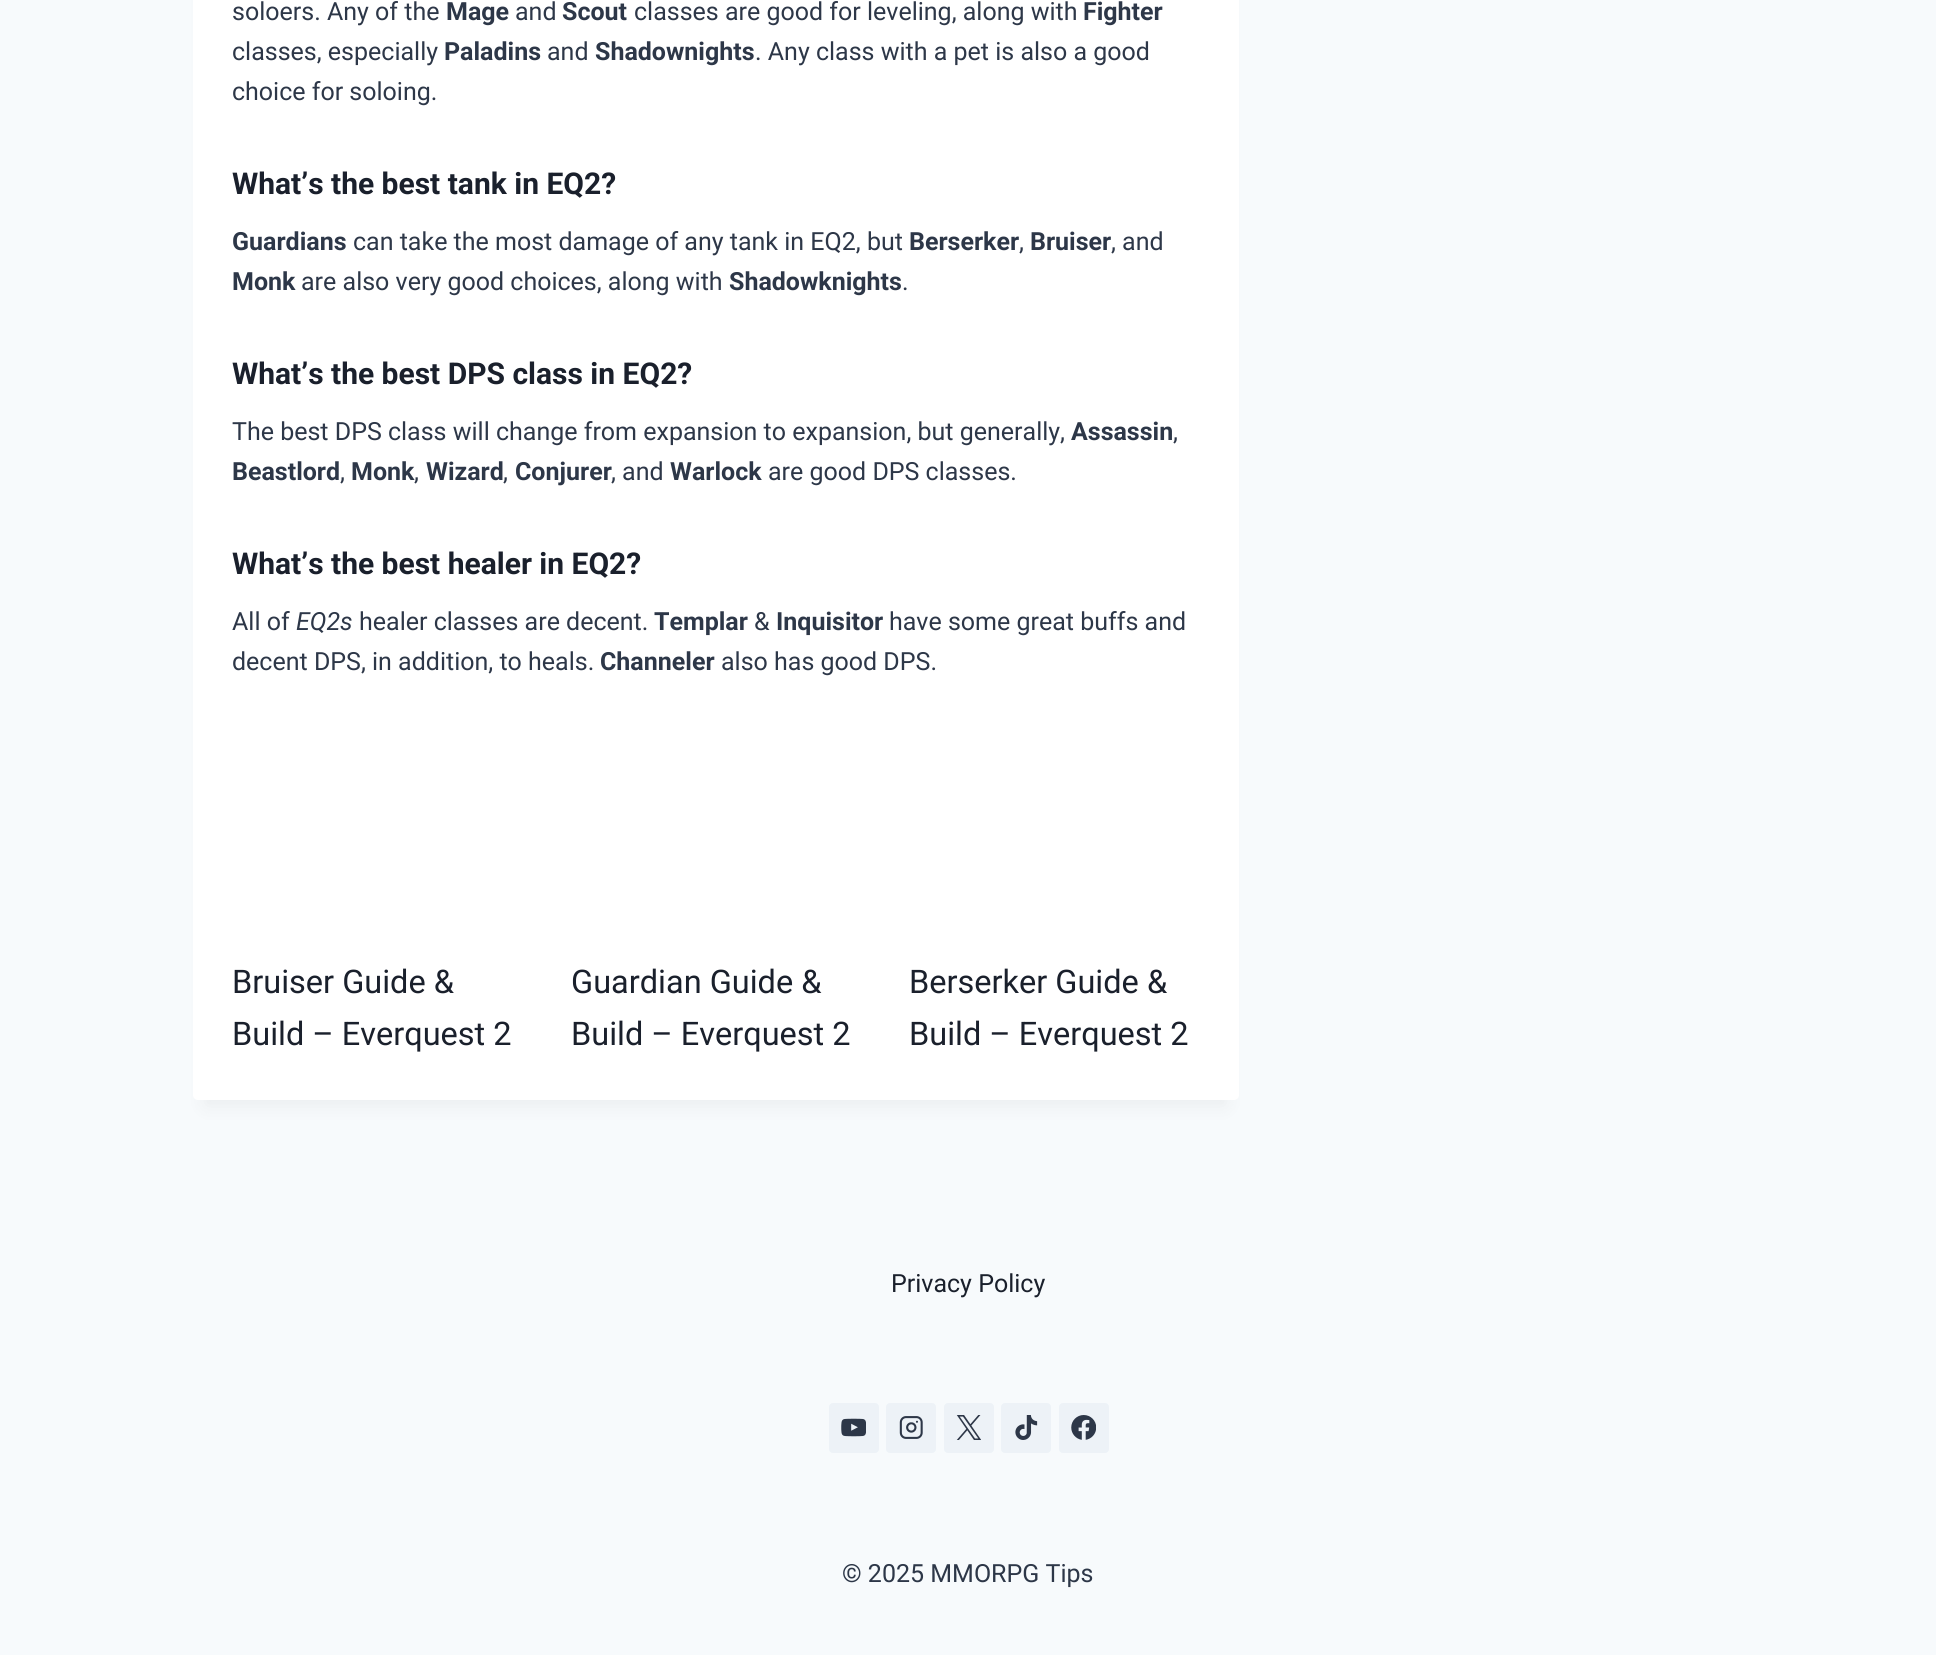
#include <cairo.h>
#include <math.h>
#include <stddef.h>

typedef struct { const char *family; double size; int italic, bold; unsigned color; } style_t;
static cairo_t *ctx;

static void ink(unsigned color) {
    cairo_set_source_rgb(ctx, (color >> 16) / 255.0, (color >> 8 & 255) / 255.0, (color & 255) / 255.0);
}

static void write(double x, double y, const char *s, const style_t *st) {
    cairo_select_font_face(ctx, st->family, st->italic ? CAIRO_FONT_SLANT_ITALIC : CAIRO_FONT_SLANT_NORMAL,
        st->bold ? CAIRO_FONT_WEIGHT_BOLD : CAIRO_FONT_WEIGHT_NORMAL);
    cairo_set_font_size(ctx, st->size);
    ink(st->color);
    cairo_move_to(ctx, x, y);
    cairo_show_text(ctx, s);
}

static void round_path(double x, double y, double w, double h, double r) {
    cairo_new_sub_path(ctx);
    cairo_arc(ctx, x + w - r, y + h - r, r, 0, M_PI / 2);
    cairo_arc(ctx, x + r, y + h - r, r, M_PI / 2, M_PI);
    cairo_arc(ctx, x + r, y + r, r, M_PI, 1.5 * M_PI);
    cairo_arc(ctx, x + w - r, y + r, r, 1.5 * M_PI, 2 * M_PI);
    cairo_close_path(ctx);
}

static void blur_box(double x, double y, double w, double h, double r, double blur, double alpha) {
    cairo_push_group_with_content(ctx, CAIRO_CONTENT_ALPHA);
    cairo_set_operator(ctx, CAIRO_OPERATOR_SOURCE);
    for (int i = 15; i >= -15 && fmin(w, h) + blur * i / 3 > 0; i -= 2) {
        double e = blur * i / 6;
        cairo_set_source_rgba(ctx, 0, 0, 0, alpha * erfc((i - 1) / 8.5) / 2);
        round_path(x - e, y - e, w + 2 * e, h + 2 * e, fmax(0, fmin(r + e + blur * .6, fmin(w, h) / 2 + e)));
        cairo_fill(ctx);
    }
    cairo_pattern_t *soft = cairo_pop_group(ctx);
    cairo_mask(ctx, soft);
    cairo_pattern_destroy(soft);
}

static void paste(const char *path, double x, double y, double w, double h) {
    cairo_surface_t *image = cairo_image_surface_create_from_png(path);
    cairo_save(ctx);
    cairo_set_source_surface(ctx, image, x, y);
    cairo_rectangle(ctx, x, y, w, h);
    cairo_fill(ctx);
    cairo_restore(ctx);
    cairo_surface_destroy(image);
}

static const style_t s1 = {"Roboto", 25, 0, 0, 0x2d3748};
static const style_t s2 = {"Roboto", 25, 0, 1, 0x2d3748};
static const style_t s3 = {"Roboto", 30, 0, 1, 0x1a202c};
static const style_t s4 = {"Roboto", 25, 1, 0, 0x2d3748};
static const style_t s5 = {"Roboto", 32.5, 0, 0, 0x1a202c};
static const style_t s6 = {"Roboto", 25, 0, 0, 0x1a202c};

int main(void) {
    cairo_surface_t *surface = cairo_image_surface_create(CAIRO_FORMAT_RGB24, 1936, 1655);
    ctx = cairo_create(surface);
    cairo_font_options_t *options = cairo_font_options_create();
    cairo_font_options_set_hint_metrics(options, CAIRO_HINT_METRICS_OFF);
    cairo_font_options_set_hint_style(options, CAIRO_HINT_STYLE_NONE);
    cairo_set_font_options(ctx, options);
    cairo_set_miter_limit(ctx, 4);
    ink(0xf7fafc);
    cairo_paint(ctx);
    ink(0x000000);
    blur_box(205, -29, 1021, 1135, 0, 9.5, 0.05);
    ink(0xffffff);
    round_path(193, -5, 1046, 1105, 5);
    cairo_fill(ctx);
    write(232, 20, "soloers. Any of the", &s1);
    write(446, 20, "Mage", &s2);
    write(515, 20, "and", &s1);
    write(562, 20, "Scout", &s2);
    write(634, 20, "classes are good for leveling, along with", &s1);
    write(1083, 20, "Fighter", &s2);
    write(232, 60, "classes, especially", &s1);
    write(444, 60, "Paladins", &s2);
    write(547, 60, "and", &s1);
    write(595, 60, "Shadownights", &s2);
    write(755, 60, ". Any class with a pet is also a good", &s1);
    write(232, 100, "choice for soloing.", &s1);
    write(232, 194, "What’s the best tank in EQ2?", &s3);
    write(232, 250, "Guardians", &s2);
    write(353, 250, "can take the most damage of any tank in EQ2, but", &s1);
    write(909, 250, "Berserker", &s2);
    write(1019, 250, ",", &s1);
    write(1030, 250, "Bruiser", &s2);
    write(1111, 250, ", and", &s1);
    write(232, 290, "Monk", &s2);
    write(301, 290, "are also very good choices, along with", &s1);
    write(729, 290, "Shadowknights", &s2);
    write(902, 290, ".", &s1);
    write(232, 384, "What’s the best DPS class in EQ2?", &s3);
    write(232, 440, "The best DPS class will change from expansion to expansion, but generally,", &s1);
    write(1071, 440, "Assassin", &s2);
    write(1173, 440, ",", &s1);
    write(232, 480, "Beastlord", &s2);
    write(340, 480, ",", &s1);
    write(351, 480, "Monk", &s2);
    write(414, 480, ",", &s1);
    write(426, 480, "Wizard", &s2);
    write(503, 480, ",", &s1);
    write(515, 480, "Conjurer", &s2);
    write(611, 480, ", and", &s1);
    write(670, 480, "Warlock", &s2);
    write(768, 480, "are good DPS classes.", &s1);
    write(232, 574, "What’s the best healer in EQ2?", &s3);
    write(232, 630, "All of", &s1);
    write(296, 630, "EQ2s", &s4);
    write(359, 630, "healer classes are decent.", &s1);
    write(654, 630, "Templar", &s2);
    write(754, 630, "&", &s1);
    write(776, 630, "Inquisitor", &s2);
    write(889, 630, "have some great buffs and", &s1);
    write(232, 670, "decent DPS, in addition, to heals.", &s1);
    write(600, 670, "Channeler", &s2);
    write(721, 670, "also has good DPS.", &s1);
    write(232, 993, "Bruiser Guide &", &s5);
    write(232, 1045, "Build – Everquest 2", &s5);
    write(571, 993, "Guardian Guide &", &s5);
    write(571, 1045, "Build – Everquest 2", &s5);
    write(909, 993, "Berserker Guide &", &s5);
    write(909, 1045, "Build – Everquest 2", &s5);
    write(891, 1292, "Privacy Policy", &s6);
    ink(0xedf2f7);
    round_path(829, 1403, 50, 50, 4);
    cairo_fill(ctx);
    paste("pic1.png", 841, 1418, 25, 19);
    round_path(886, 1403, 50, 50, 4);
    cairo_fill(ctx);
    paste("pic2.png", 899, 1416, 24, 23);
    round_path(944, 1403, 50, 50, 4);
    cairo_fill(ctx);
    paste("pic3.png", 956, 1415, 25, 25);
    round_path(1001, 1403, 50, 50, 4);
    cairo_fill(ctx);
    paste("pic4.png", 1015, 1415, 23, 25);
    round_path(1059, 1403, 50, 50, 4);
    cairo_fill(ctx);
    paste("pic5.png", 1071, 1415, 25, 25);
    write(842, 1582, "© 2025 MMORPG Tips", &s1);
    cairo_surface_write_to_png(surface, "screenshot.png");
    cairo_font_options_destroy(options);
    cairo_destroy(ctx);
    cairo_surface_destroy(surface);
    return 0;
}
